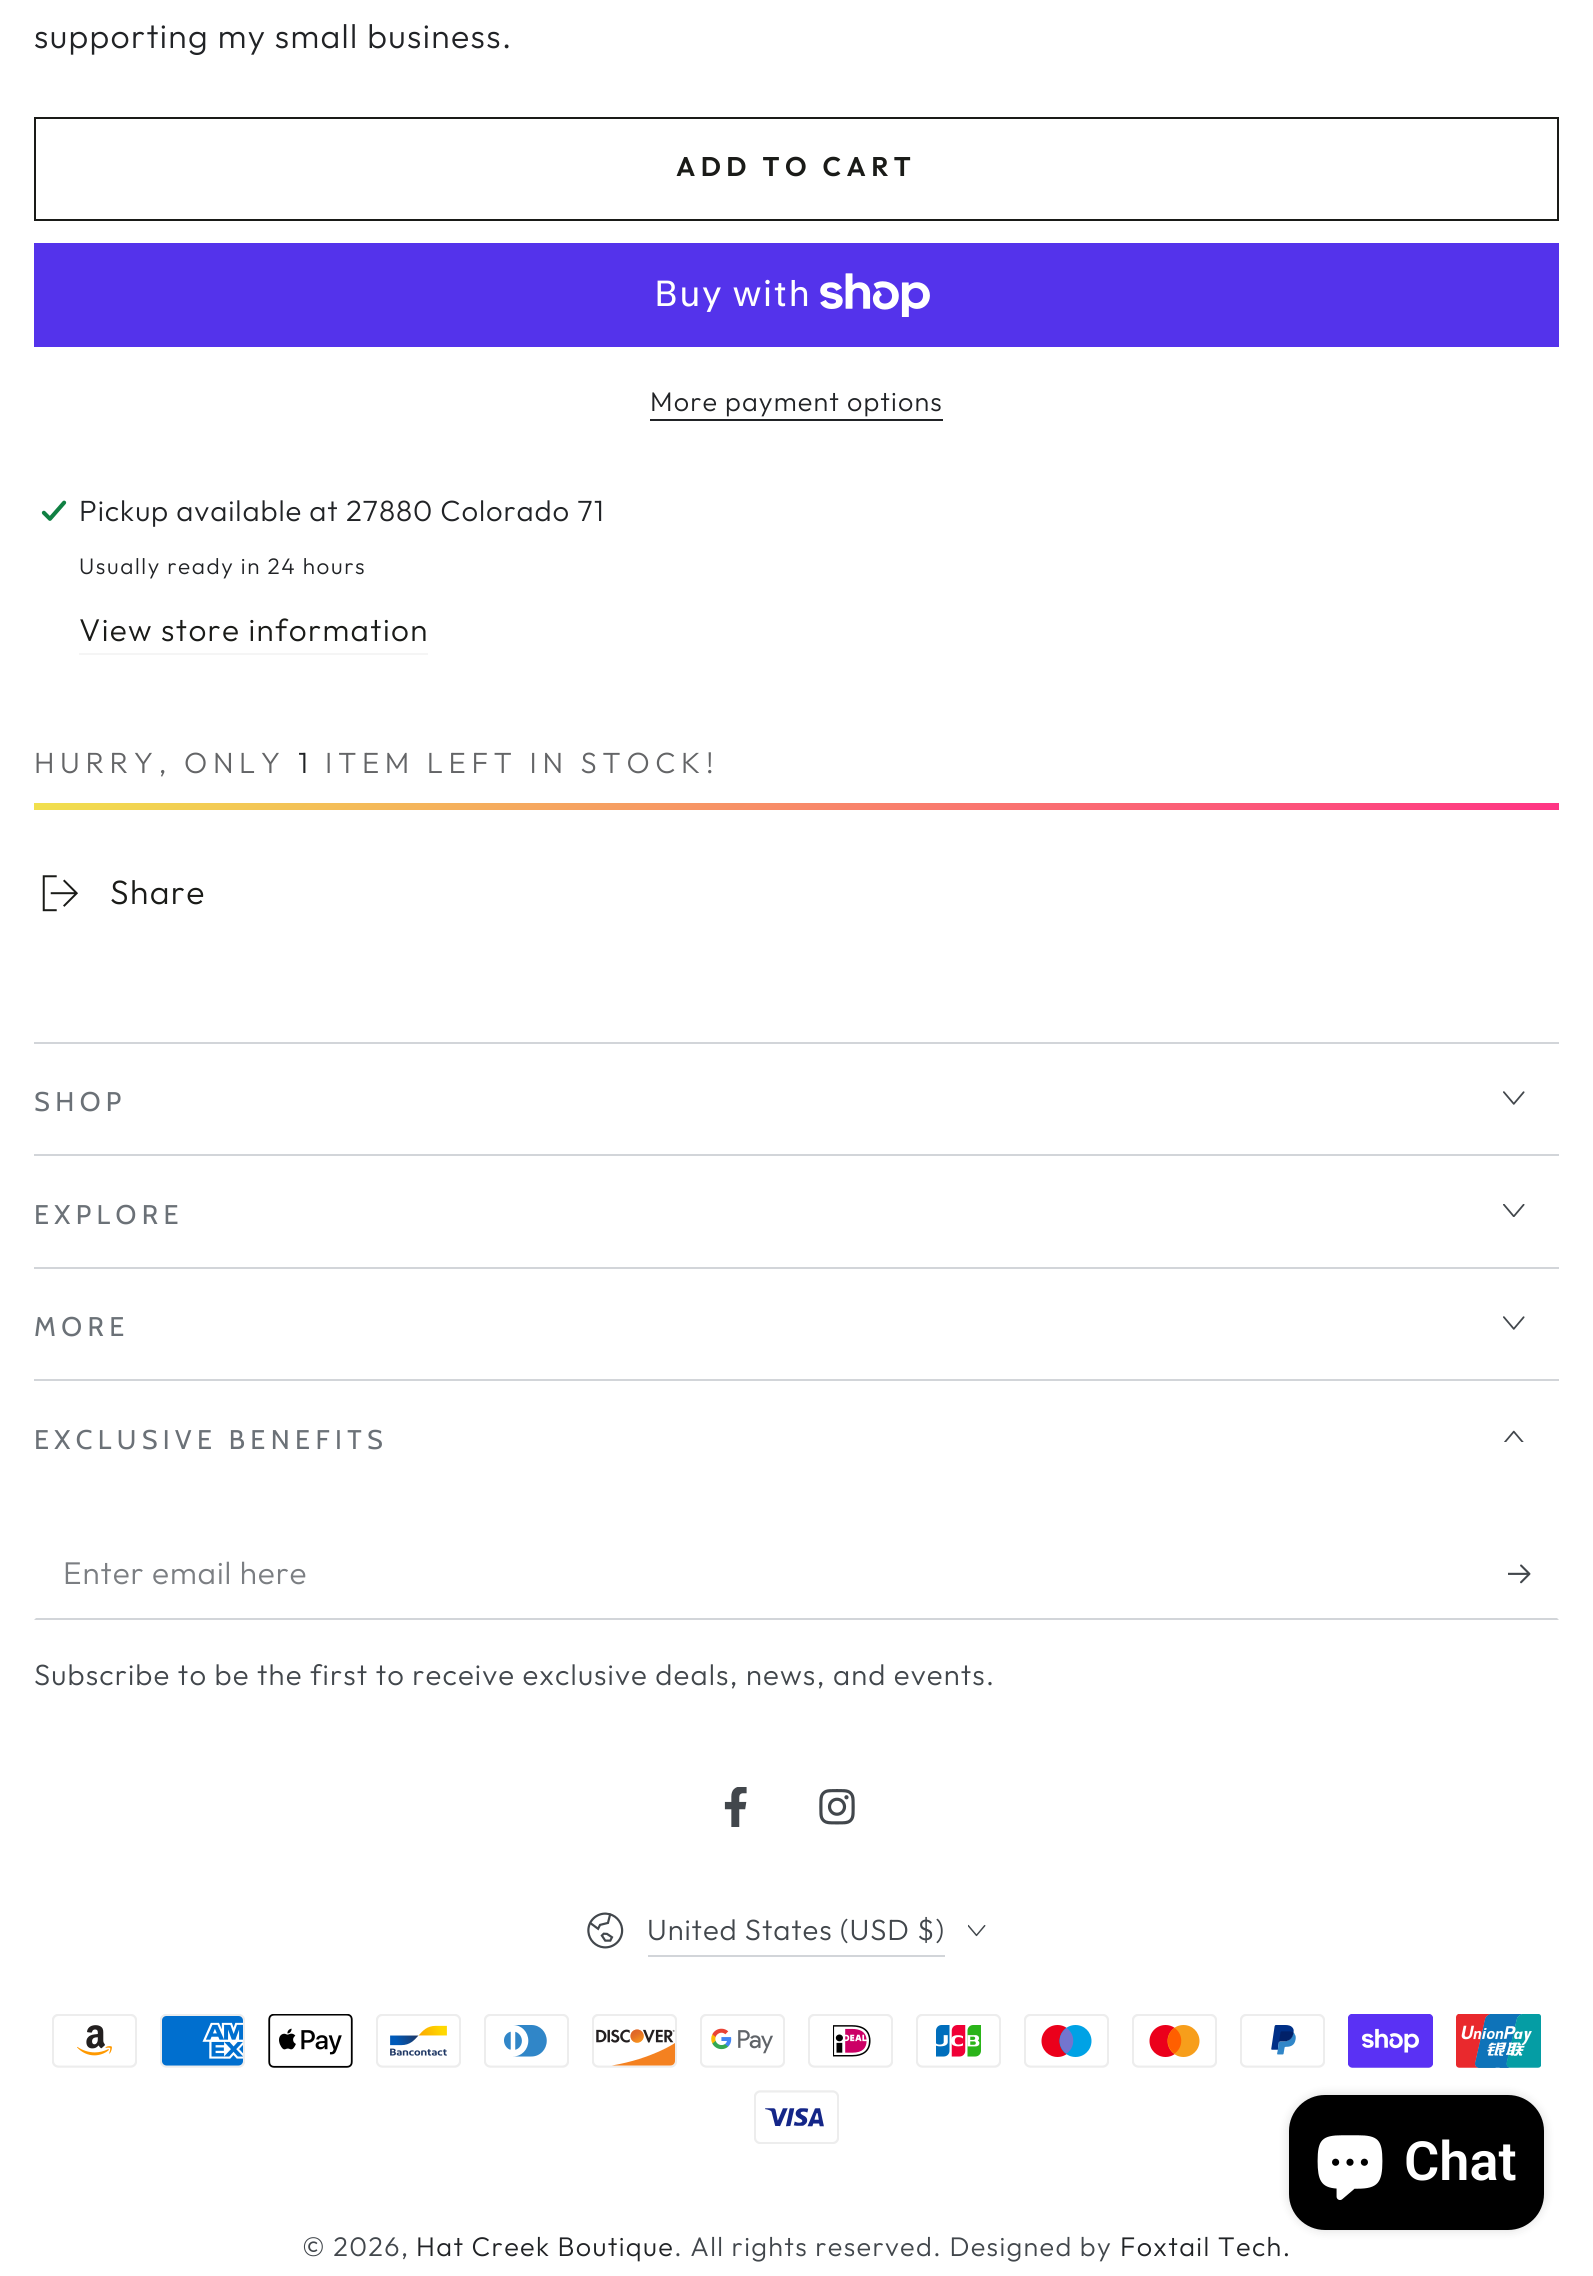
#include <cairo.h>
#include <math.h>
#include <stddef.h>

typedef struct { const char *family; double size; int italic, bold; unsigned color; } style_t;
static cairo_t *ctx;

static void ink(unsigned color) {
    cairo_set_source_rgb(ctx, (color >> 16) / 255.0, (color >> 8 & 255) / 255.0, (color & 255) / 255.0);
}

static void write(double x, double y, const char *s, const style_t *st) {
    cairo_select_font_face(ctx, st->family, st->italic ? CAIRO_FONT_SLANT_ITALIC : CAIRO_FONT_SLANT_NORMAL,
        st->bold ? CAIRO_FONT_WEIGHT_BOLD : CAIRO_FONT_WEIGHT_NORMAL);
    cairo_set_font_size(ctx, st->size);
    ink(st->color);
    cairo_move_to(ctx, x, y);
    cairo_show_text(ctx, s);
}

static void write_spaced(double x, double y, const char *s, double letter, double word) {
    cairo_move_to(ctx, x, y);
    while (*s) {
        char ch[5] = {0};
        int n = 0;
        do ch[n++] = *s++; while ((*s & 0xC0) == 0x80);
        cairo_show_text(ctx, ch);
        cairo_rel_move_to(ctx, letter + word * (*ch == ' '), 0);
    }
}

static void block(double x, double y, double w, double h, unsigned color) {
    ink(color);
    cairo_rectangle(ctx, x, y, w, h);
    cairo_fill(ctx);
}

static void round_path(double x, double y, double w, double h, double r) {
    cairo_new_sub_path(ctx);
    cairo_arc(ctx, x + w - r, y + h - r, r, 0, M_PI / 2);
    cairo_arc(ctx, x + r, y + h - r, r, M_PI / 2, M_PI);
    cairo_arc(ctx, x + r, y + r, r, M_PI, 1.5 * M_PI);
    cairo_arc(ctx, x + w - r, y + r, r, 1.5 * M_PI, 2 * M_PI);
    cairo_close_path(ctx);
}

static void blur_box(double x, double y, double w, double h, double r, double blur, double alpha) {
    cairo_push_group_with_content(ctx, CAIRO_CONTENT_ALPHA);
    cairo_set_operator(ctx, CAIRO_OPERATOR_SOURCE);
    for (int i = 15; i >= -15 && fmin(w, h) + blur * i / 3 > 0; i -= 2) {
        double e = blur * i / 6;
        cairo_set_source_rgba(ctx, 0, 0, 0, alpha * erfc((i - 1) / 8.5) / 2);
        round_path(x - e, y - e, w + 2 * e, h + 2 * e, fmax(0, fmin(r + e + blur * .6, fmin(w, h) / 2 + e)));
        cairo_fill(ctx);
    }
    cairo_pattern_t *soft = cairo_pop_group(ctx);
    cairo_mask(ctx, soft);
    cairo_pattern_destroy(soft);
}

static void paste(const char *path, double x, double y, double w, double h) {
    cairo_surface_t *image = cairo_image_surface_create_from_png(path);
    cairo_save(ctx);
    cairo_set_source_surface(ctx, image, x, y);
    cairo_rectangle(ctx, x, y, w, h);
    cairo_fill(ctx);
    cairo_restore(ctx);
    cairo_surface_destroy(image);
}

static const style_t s1 = {"Roboto SemiBold", 54, 0, 0, 0xffffff};

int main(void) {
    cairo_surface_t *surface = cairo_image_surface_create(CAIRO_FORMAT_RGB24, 1593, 2276);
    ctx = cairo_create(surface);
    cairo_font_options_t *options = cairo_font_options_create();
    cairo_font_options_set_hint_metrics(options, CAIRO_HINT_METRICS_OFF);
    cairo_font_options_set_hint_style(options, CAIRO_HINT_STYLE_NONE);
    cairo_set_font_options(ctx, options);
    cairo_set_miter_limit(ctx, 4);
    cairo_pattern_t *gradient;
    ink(0xffffff);
    cairo_paint(ctx);
    cairo_select_font_face(ctx, "Outfit Light", CAIRO_FONT_SLANT_NORMAL, CAIRO_FONT_WEIGHT_NORMAL);
    cairo_set_font_size(ctx, 33.75);
    ink(0x212326);
    write_spaced(34, 48, "supporting my small business.", 1.35, 0);
    cairo_rectangle(ctx, 35, 118, 1523, 102);
    ink(0x1a1b18);
    cairo_stroke(ctx);
    cairo_select_font_face(ctx, "Outfit SemiBold", CAIRO_FONT_SLANT_NORMAL, CAIRO_FONT_WEIGHT_NORMAL);
    cairo_set_font_size(ctx, 27);
    write_spaced(676, 176, "ADD TO CART", 5.4, 0);
    block(34, 243, 1525, 104, 0x5433eb);
    cairo_select_font_face(ctx, "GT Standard", CAIRO_FONT_SLANT_NORMAL, CAIRO_FONT_WEIGHT_NORMAL);
    cairo_set_font_size(ctx, 36);
    ink(0xffffff);
    write_spaced(654, 306, "Buy with", 1.35, 0);
    paste("pic1.png", 820, 273, 110, 44);
    cairo_select_font_face(ctx, "Outfit Light", CAIRO_FONT_SLANT_NORMAL, CAIRO_FONT_WEIGHT_NORMAL);
    cairo_set_font_size(ctx, 27);
    ink(0x212326);
    write_spaced(650, 411, "More payment options", 1.12, 0);
    block(650, 419, 293, 2, 0x212326);
    paste("pic2.png", 41, 500, 26, 21);
    cairo_set_font_size(ctx, 29.25);
    write_spaced(79, 521, "Pickup available at 27880 Colorado 71", 0.9, 0);
    cairo_set_font_size(ctx, 22.5);
    write_spaced(79, 574, "Usually ready in 24 hours", 1.6, 0);
    block(79, 653, 349, 2, 0xf5f5f5);
    cairo_set_font_size(ctx, 31.5);
    ink(0x1a1b18);
    write_spaced(79, 641, "View store information", 1.35, 0);
    cairo_set_font_size(ctx, 29.25);
    ink(0x646567);
    write_spaced(34, 773, "HURRY, ONLY", 5.6, 0);
    ink(0x212326);
    write_spaced(298, 773, "1", 5.6, 0);
    ink(0x646567);
    write_spaced(325, 773, "ITEM LEFT IN STOCK!", 5.6, 0);
    gradient = cairo_pattern_create_linear(1049, 1167, 544, 446);
    cairo_pattern_add_color_stop_rgba(gradient, 0, 1, 0.204, 0.518, 1);
    cairo_pattern_add_color_stop_rgba(gradient, 1, 0.945, 0.878, 0.302, 1);
    cairo_set_source(ctx, gradient);
    cairo_pattern_destroy(gradient);
    cairo_rectangle(ctx, 34, 803, 1525, 7);
    cairo_fill(ctx);
    paste("pic3.png", 42, 875, 36, 37);
    cairo_set_font_size(ctx, 33.75);
    ink(0x1a1b18);
    write_spaced(110, 904, "Share", 1.35, 0);
    block(34, 1042, 1525, 2, 0xd2d5d9);
    block(34, 1154, 1525, 2, 0xd2d5d9);
    cairo_select_font_face(ctx, "Cabin", CAIRO_FONT_SLANT_NORMAL, CAIRO_FONT_WEIGHT_NORMAL);
    cairo_set_font_size(ctx, 27);
    ink(0x6b7177);
    write_spaced(34, 1111, "SHOP", 5.4, 0);
    paste("pic4.png", 1503, 1091, 22, 14);
    block(34, 1267, 1525, 2, 0xd2d5d9);
    ink(0x6b7177);
    write_spaced(34, 1224, "EXPLORE", 5.4, 0);
    paste("pic5.png", 1503, 1204, 22, 13);
    block(34, 1379, 1525, 2, 0xd2d5d9);
    ink(0x6b7177);
    write_spaced(34, 1336, "MORE", 5.4, 0);
    paste("pic4.png", 1503, 1316, 22, 14);
    write_spaced(34, 1449, "EXCLUSIVE BENEFITS", 5.4, 0);
    paste("pic6.png", 1504, 1430, 20, 12);
    ink(0xd2d5d9);
    cairo_new_path(ctx);
    cairo_move_to(ctx, 1559, 1620);
    cairo_line_to(ctx, 34, 1620);
    cairo_line_to(ctx, 36, 1618);
    cairo_line_to(ctx, 1557, 1618);
    cairo_close_path(ctx);
    cairo_fill(ctx);
    cairo_select_font_face(ctx, "Outfit Light", CAIRO_FONT_SLANT_NORMAL, CAIRO_FONT_WEIGHT_NORMAL);
    cairo_set_font_size(ctx, 31.5);
    ink(0x7b7e82);
    write_spaced(63, 1584, "Enter email here", 0.9, 0);
    paste("pic7.png", 1508, 1564, 23, 20);
    cairo_set_font_size(ctx, 29.25);
    ink(0x42474c);
    write_spaced(34, 1685, "Subscribe to be the first to receive exclusive deals, news, and events.", 1.12, 0);
    paste("pic8.png", 724, 1787, 23, 40);
    paste("pic9.png", 819, 1789, 36, 36);
    paste("pic10.png", 587, 1912, 37, 37);
    block(648, 1955, 297, 2, 0xd2d5d9);
    ink(0x42474c);
    write_spaced(647, 1940, "United States (USD $)", 0.9, 0);
    paste("pic11.png", 968, 1924, 18, 13);
    paste("pic12.png", 52, 2014, 85, 54);
    paste("pic13.png", 160, 2014, 85, 54);
    paste("pic14.png", 268, 2014, 85, 54);
    paste("pic15.png", 376, 2014, 85, 54);
    paste("pic16.png", 484, 2014, 85, 54);
    paste("pic17.png", 592, 2014, 85, 54);
    paste("pic18.png", 700, 2014, 85, 54);
    paste("pic19.png", 808, 2014, 85, 54);
    paste("pic20.png", 916, 2014, 85, 54);
    paste("pic21.png", 1024, 2014, 85, 54);
    paste("pic22.png", 1132, 2014, 85, 54);
    paste("pic23.png", 1240, 2014, 85, 54);
    paste("pic24.png", 1348, 2014, 85, 54);
    paste("pic25.png", 1456, 2014, 85, 54);
    paste("pic26.png", 754, 2090, 85, 54);
    cairo_set_font_size(ctx, 27);
    write_spaced(302, 2256, "© 2026,", 1.35, 0);
    ink(0x212326);
    write_spaced(416, 2256, "Hat Creek Boutique", 1.35, 0);
    ink(0x42474c);
    write_spaced(674, 2256, ". All rights reserved. Designed by", 1.35, 0);
    ink(0x212326);
    write_spaced(1120, 2256, "Foxtail Tech.", 1.35, 0);
    ink(0x000000);
    blur_box(1289, 2095, 255, 135, 36, 5.5, 0.15);
    ink(0x000000);
    round_path(1289, 2095, 255, 135, 36);
    cairo_fill(ctx);
    paste("pic27.png", 1317, 2135, 66, 65);
    write(1404, 2180, "Chat", &s1);
    cairo_surface_write_to_png(surface, "screenshot.png");
    cairo_font_options_destroy(options);
    cairo_destroy(ctx);
    cairo_surface_destroy(surface);
    return 0;
}
